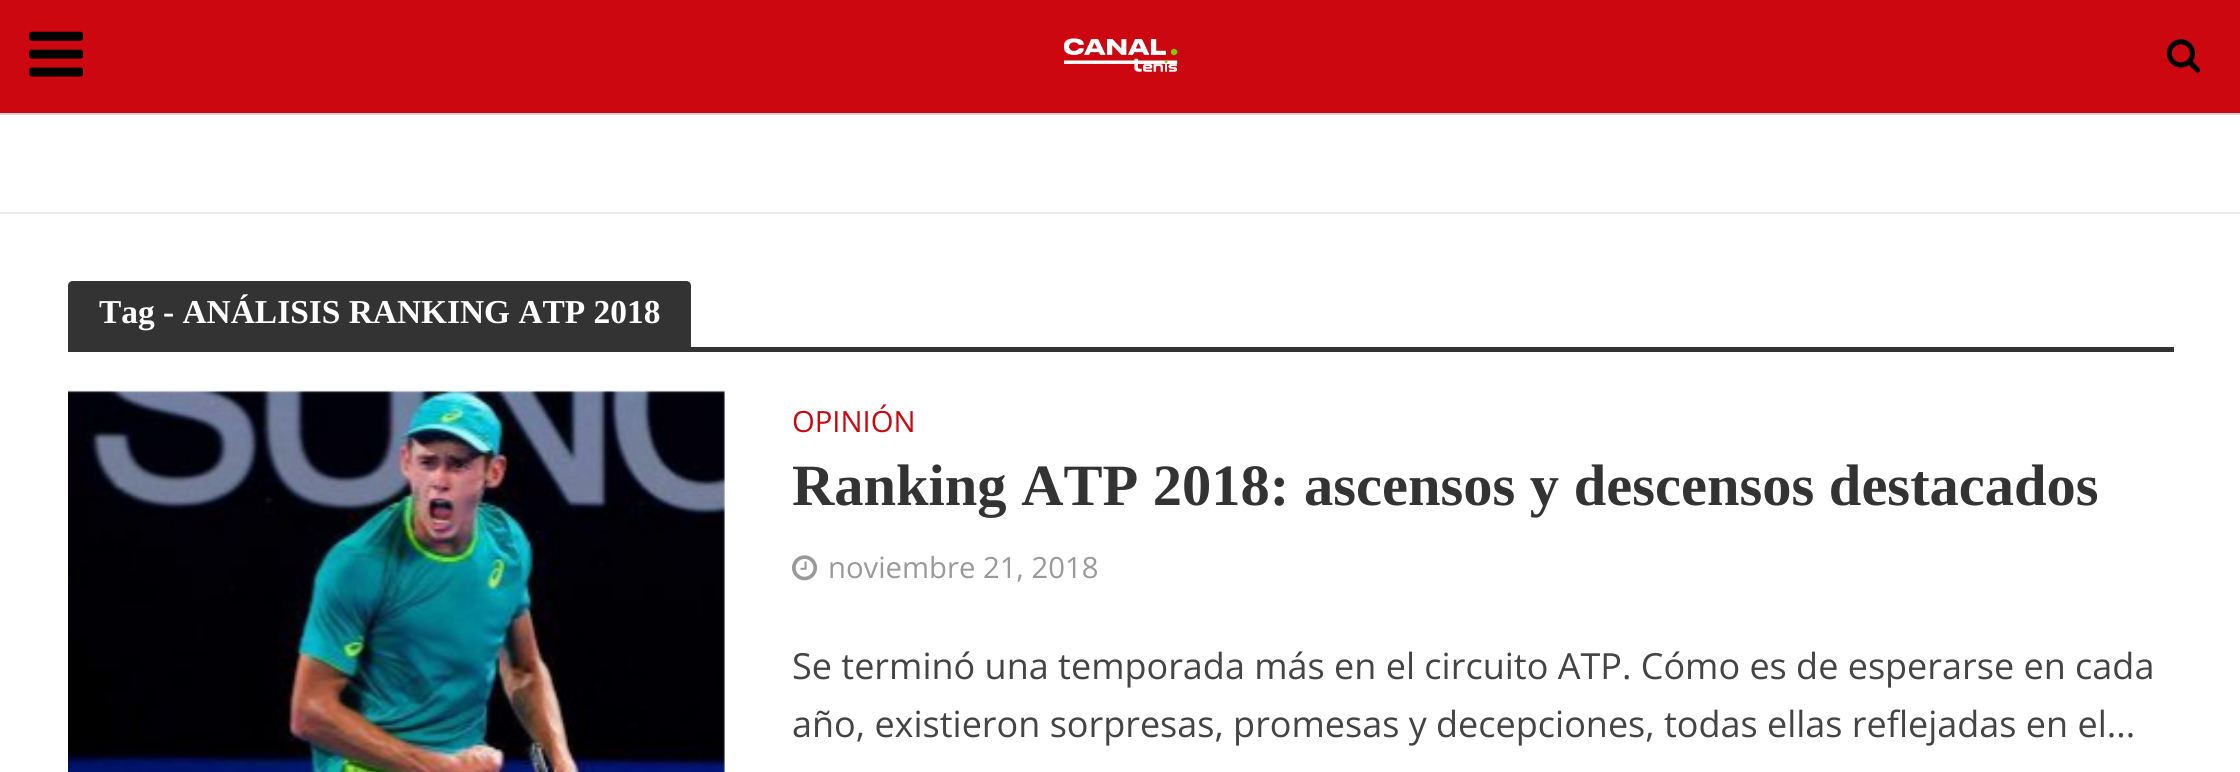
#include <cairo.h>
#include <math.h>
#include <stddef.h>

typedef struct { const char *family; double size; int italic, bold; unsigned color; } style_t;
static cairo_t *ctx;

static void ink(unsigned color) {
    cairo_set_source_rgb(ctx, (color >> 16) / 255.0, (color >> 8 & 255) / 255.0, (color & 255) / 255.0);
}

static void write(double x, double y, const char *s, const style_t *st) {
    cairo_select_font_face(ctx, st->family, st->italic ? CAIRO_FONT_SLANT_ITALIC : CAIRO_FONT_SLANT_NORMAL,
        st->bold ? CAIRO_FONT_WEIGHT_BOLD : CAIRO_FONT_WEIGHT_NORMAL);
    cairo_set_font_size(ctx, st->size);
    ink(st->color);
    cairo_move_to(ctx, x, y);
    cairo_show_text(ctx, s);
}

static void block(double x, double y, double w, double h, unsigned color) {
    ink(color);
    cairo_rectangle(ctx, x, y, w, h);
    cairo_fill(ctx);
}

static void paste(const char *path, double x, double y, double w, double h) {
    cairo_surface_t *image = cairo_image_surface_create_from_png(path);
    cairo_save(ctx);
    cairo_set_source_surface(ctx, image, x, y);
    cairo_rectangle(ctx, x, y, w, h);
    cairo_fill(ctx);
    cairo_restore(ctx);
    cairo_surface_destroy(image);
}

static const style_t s1 = {"Liberation Serif", 33.4, 0, 1, 0xffffff};
static const style_t s2 = {"Open Sans", 29.25, 0, 0, 0xcc0710};
static const style_t s3 = {"Liberation Serif", 58.5, 0, 1, 0x333333};
static const style_t s4 = {"Open Sans", 29.25, 0, 0, 0x999999};
static const style_t s5 = {"Open Sans", 36, 0, 0, 0x444444};

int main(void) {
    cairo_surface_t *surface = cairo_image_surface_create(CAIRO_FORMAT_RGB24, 2240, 772);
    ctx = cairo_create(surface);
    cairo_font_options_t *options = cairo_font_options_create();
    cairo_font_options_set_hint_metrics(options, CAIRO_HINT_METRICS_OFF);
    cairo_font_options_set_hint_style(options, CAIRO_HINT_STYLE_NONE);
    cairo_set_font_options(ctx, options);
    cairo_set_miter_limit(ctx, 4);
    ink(0xffffff);
    cairo_paint(ctx);
    ink(0xd9d9d9);
    cairo_new_path(ctx);
    cairo_move_to(ctx, 0, -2);
    cairo_line_to(ctx, 0, 0);
    cairo_line_to(ctx, 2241, 0);
    cairo_line_to(ctx, 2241, 112);
    cairo_line_to(ctx, 0, 112);
    cairo_line_to(ctx, 0, 115);
    cairo_line_to(ctx, 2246, 115);
    cairo_line_to(ctx, 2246, -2);
    cairo_close_path(ctx);
    cairo_fill(ctx);
    block(0, 0, 2240, 113, 0xcc0710);
    paste("pic1.png", 29, 31, 54, 46);
    paste("pic2.png", 1064, 38, 114, 34);
    paste("pic3.png", 2166, 39, 35, 34);
    cairo_rectangle(ctx, -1, 213, 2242, 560);
    ink(0xececec);
    cairo_stroke(ctx);
    ink(0x333333);
    cairo_new_path(ctx);
    cairo_move_to(ctx, 73, 281);
    cairo_line_to(ctx, 686, 281);
    cairo_curve_to(ctx, 689, 281, 691, 283, 691, 286);
    cairo_line_to(ctx, 691, 347);
    cairo_line_to(ctx, 68, 347);
    cairo_line_to(ctx, 68, 286);
    cairo_curve_to(ctx, 68, 283, 70, 281, 73, 281);
    cairo_close_path(ctx);
    cairo_fill(ctx);
    write(99, 323, "Tag - ANÁLISIS RANKING ATP 2018", &s1);
    block(68, 347, 2106, 5, 0x333333);
    block(68, 392, 657, 380, 0xf3f3f3);
    paste("pic4.png", 68, 390, 657, 382);
    write(792, 432, "OPINIÓN", &s2);
    write(792, 505, "Ranking ATP 2018: ascensos y descensos destacados", &s3);
    paste("pic5.png", 792, 555, 25, 26);
    write(828, 578, "noviembre 21, 2018", &s4);
    write(792, 679, "Se terminó una temporada más en el circuito ATP. Cómo es de esperarse en cada", &s5);
    write(792, 737, "año, existieron sorpresas, promesas y decepciones, todas ellas reflejadas en el...", &s5);
    cairo_surface_write_to_png(surface, "screenshot.png");
    cairo_font_options_destroy(options);
    cairo_destroy(ctx);
    cairo_surface_destroy(surface);
    return 0;
}
